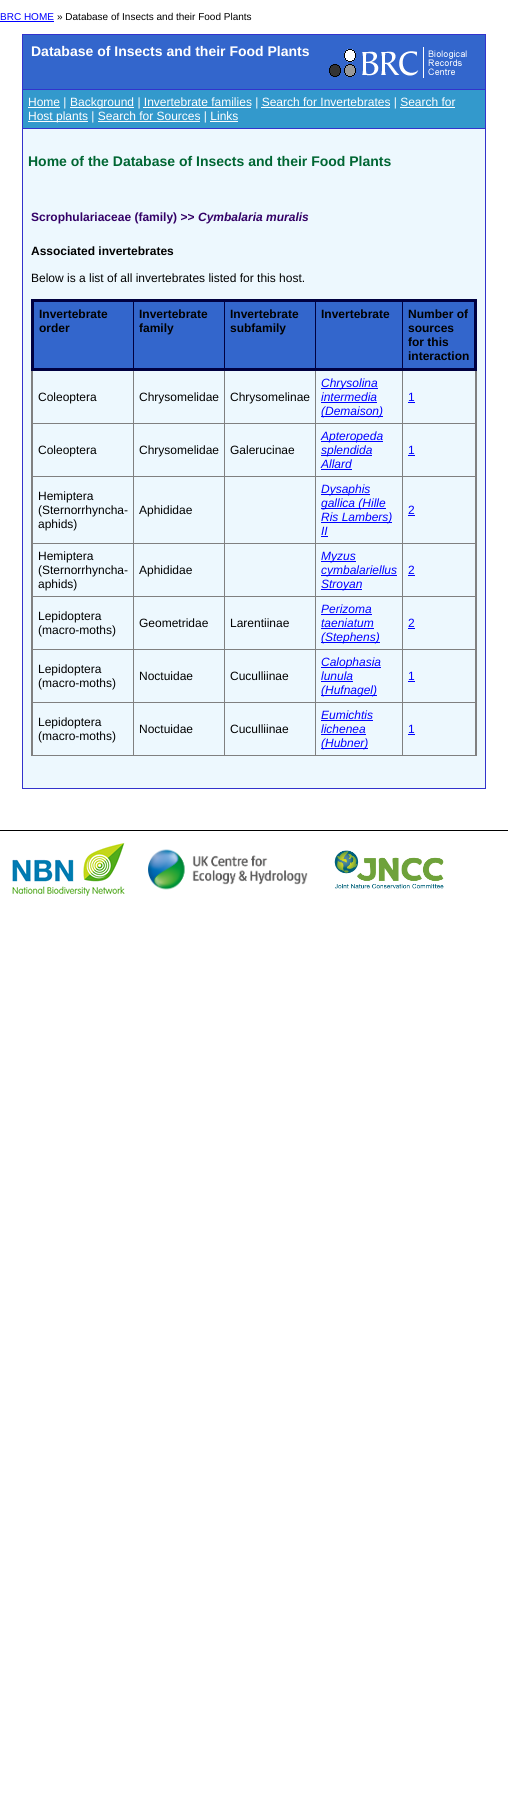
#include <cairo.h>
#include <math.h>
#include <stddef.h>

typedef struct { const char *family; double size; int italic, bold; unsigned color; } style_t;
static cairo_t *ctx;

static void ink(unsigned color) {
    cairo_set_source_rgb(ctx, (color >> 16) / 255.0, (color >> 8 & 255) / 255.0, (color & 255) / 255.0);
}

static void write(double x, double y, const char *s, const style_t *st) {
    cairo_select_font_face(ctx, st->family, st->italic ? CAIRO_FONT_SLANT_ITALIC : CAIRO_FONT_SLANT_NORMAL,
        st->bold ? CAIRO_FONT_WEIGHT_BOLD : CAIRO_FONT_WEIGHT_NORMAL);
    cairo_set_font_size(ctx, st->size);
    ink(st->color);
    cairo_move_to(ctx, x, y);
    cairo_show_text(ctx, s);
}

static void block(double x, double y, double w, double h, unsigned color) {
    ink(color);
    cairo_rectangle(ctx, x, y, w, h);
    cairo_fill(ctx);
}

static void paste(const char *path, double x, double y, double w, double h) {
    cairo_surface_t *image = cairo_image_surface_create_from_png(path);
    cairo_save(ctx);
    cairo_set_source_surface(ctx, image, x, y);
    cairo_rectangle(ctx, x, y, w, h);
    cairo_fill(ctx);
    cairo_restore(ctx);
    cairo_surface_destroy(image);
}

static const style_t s1 = {"Liberation Sans", 10, 0, 0, 0x0000ff};
static const style_t s2 = {"Liberation Sans", 10, 0, 0, 0x000000};
static const style_t s3 = {"Liberation Sans", 14, 0, 1, 0xffffff};
static const style_t s4 = {"Liberation Sans", 12, 0, 0, 0xffffff};
static const style_t s5 = {"Liberation Sans", 14, 0, 1, 0x006633};
static const style_t s6 = {"Liberation Sans", 12, 0, 1, 0x330066};
static const style_t s7 = {"Liberation Sans", 12, 1, 1, 0x330066};
static const style_t s8 = {"Liberation Sans", 12, 0, 1, 0x000000};
static const style_t s9 = {"Liberation Sans", 12, 0, 0, 0x000000};
static const style_t s10 = {"Liberation Sans", 12, 1, 0, 0x0000ff};
static const style_t s11 = {"Liberation Sans", 12, 0, 0, 0x0000ff};

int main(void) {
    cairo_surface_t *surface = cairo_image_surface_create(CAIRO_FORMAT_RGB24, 508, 1808);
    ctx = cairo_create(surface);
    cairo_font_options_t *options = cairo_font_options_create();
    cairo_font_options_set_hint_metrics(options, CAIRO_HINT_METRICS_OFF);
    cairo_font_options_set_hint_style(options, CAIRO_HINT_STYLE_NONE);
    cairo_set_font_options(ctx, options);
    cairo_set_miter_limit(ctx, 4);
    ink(0xffffff);
    cairo_paint(ctx);
    write(0, 20, "BRC HOME", &s1);
    block(0, 21, 54, 1, 0x0000ff);
    write(57, 20, "» Database of Insects and their Food Plants", &s2);
    block(22, 34, 464, 755, 0x3333cc);
    block(23, 35, 462, 54, 0x3366cc);
    write(31, 56, "Database of Insects and their Food Plants", &s3);
    paste("pic1.png", 329, 47, 138, 31);
    block(23, 90, 462, 38, 0x3399cc);
    block(28, 107, 32, 1, 0xffffff);
    write(28, 106, "Home |", &s4);
    block(70, 107, 64, 1, 0xffffff);
    write(70, 106, "Background | Invertebrate families | Search for Invertebrates | Search for", &s4);
    block(143, 107, 108, 1, 0xffffff);
    block(261, 107, 129, 1, 0xffffff);
    block(28, 121, 60, 1, 0xffffff);
    write(28, 120, "Host plants | Search for Sources | Links", &s4);
    block(400, 107, 55, 1, 0xffffff);
    block(98, 121, 102, 1, 0xffffff);
    block(210, 121, 28, 1, 0xffffff);
    block(23, 129, 462, 659, 0xedf8fe);
    write(28, 166, "Home of the Database of Insects and their Food Plants", &s5);
    write(31, 221, "Scrophulariaceae (family) >>", &s6);
    write(198, 221, "Cymbalaria muralis", &s7);
    write(31, 255, "Associated invertebrates", &s8);
    write(31, 282, "Below is a list of all invertebrates listed for this host.", &s9);
    block(476, 371, 1, 385, 0x808080);
    block(31, 755, 446, 1, 0x808080);
    block(31, 371, 1, 385, 0x808080);
    block(34, 302, 440, 66, 0x3366cc);
    block(402, 423, 74, 1, 0x808080);
    block(402, 476, 74, 1, 0x808080);
    block(402, 543, 74, 1, 0x808080);
    block(402, 596, 74, 1, 0x808080);
    block(402, 649, 74, 1, 0x808080);
    block(402, 702, 74, 1, 0x808080);
    block(402, 702, 1, 54, 0x808080);
    block(315, 702, 88, 1, 0x808080);
    block(402, 649, 1, 54, 0x808080);
    block(315, 649, 88, 1, 0x808080);
    block(402, 596, 1, 54, 0x808080);
    block(315, 596, 88, 1, 0x808080);
    block(402, 543, 1, 54, 0x808080);
    block(315, 543, 88, 1, 0x808080);
    block(402, 476, 1, 68, 0x808080);
    block(315, 476, 88, 1, 0x808080);
    block(402, 423, 1, 54, 0x808080);
    block(315, 423, 88, 1, 0x808080);
    block(315, 702, 1, 54, 0x808080);
    block(224, 702, 92, 1, 0x808080);
    block(315, 649, 1, 54, 0x808080);
    block(224, 649, 92, 1, 0x808080);
    block(315, 596, 1, 54, 0x808080);
    block(224, 596, 92, 1, 0x808080);
    block(315, 543, 1, 54, 0x808080);
    block(224, 543, 92, 1, 0x808080);
    block(315, 476, 1, 68, 0x808080);
    block(224, 476, 92, 1, 0x808080);
    block(315, 423, 1, 54, 0x808080);
    block(224, 423, 92, 1, 0x808080);
    block(224, 702, 1, 54, 0x808080);
    block(133, 702, 92, 1, 0x808080);
    block(224, 649, 1, 54, 0x808080);
    block(133, 649, 92, 1, 0x808080);
    block(224, 596, 1, 54, 0x808080);
    block(133, 596, 92, 1, 0x808080);
    block(224, 543, 1, 54, 0x808080);
    block(133, 543, 92, 1, 0x808080);
    block(224, 476, 1, 68, 0x808080);
    block(133, 476, 92, 1, 0x808080);
    block(224, 423, 1, 54, 0x808080);
    block(133, 423, 92, 1, 0x808080);
    block(133, 702, 1, 54, 0x808080);
    block(32, 702, 102, 1, 0x808080);
    block(133, 649, 1, 54, 0x808080);
    block(32, 649, 102, 1, 0x808080);
    block(133, 596, 1, 54, 0x808080);
    block(32, 596, 102, 1, 0x808080);
    block(133, 543, 1, 54, 0x808080);
    block(32, 543, 102, 1, 0x808080);
    block(133, 476, 1, 68, 0x808080);
    block(32, 476, 102, 1, 0x808080);
    block(133, 423, 1, 54, 0x808080);
    block(32, 423, 102, 1, 0x808080);
    block(133, 369, 1, 55, 0x808080);
    block(133, 300, 1, 70, 0x000040);
    block(224, 369, 1, 55, 0x808080);
    block(224, 300, 1, 70, 0x000040);
    block(315, 369, 1, 55, 0x808080);
    block(315, 300, 1, 70, 0x000040);
    block(402, 369, 1, 55, 0x808080);
    block(402, 300, 1, 70, 0x000040);
    block(31, 299, 446, 3, 0x000040);
    block(475, 702, 1, 54, 0x808080);
    block(475, 649, 1, 54, 0x808080);
    block(475, 596, 1, 54, 0x808080);
    block(475, 543, 1, 54, 0x808080);
    block(475, 476, 1, 68, 0x808080);
    block(475, 369, 1, 108, 0x808080);
    block(474, 299, 3, 72, 0x000040);
    block(32, 702, 1, 54, 0x808080);
    block(32, 649, 1, 54, 0x808080);
    block(32, 596, 1, 54, 0x808080);
    block(32, 543, 1, 54, 0x808080);
    block(32, 476, 1, 68, 0x808080);
    block(32, 369, 1, 108, 0x808080);
    block(31, 368, 446, 3, 0x000040);
    block(31, 299, 3, 72, 0x000040);
    write(39, 318, "Invertebrate", &s8);
    write(39, 332, "order", &s8);
    write(139, 318, "Invertebrate", &s8);
    write(139, 332, "family", &s8);
    write(230, 318, "Invertebrate", &s8);
    write(230, 332, "subfamily", &s8);
    write(321, 318, "Invertebrate", &s8);
    write(408, 318, "Number of", &s8);
    write(408, 332, "sources", &s8);
    write(408, 346, "for this", &s8);
    write(408, 360, "interaction", &s8);
    write(38, 401, "Coleoptera", &s9);
    write(139, 401, "Chrysomelidae", &s9);
    write(230, 401, "Chrysomelinae", &s9);
    block(321, 388, 57, 1, 0x0000ff);
    write(321, 387, "Chrysolina", &s10);
    write(321, 401, "intermedia", &s10);
    block(321, 402, 56, 1, 0x0000ff);
    block(321, 416, 62, 1, 0x0000ff);
    write(321, 415, "(Demaison)", &s10);
    write(408, 401, "1", &s11);
    block(408, 402, 7, 1, 0x0000ff);
    write(38, 454, "Coleoptera", &s9);
    write(139, 454, "Chrysomelidae", &s9);
    write(230, 454, "Galerucinae", &s9);
    block(321, 441, 62, 1, 0x0000ff);
    write(321, 440, "Apteropeda", &s10);
    block(321, 455, 51, 1, 0x0000ff);
    write(321, 454, "splendida", &s10);
    write(321, 468, "Allard", &s10);
    block(321, 469, 31, 1, 0x0000ff);
    write(408, 454, "1", &s11);
    block(408, 455, 7, 1, 0x0000ff);
    write(38, 500, "Hemiptera", &s9);
    write(38, 514, "(Sternorrhyncha-", &s9);
    write(38, 528, "aphids)", &s9);
    write(139, 514, "Aphididae", &s9);
    block(321, 494, 49, 1, 0x0000ff);
    write(321, 493, "Dysaphis", &s10);
    block(321, 508, 65, 1, 0x0000ff);
    write(321, 507, "gallica (Hille", &s10);
    block(321, 522, 71, 1, 0x0000ff);
    write(321, 521, "Ris Lambers)", &s10);
    write(321, 535, "II", &s10);
    block(321, 536, 7, 1, 0x0000ff);
    write(408, 514, "2", &s11);
    block(408, 515, 7, 1, 0x0000ff);
    write(38, 560, "Hemiptera", &s9);
    write(38, 574, "(Sternorrhyncha-", &s9);
    write(38, 588, "aphids)", &s9);
    write(139, 574, "Aphididae", &s9);
    block(321, 561, 35, 1, 0x0000ff);
    write(321, 560, "Myzus", &s10);
    block(321, 575, 76, 1, 0x0000ff);
    write(321, 574, "cymbalariellus", &s10);
    block(321, 589, 41, 1, 0x0000ff);
    write(321, 588, "Stroyan", &s10);
    write(408, 574, "2", &s11);
    block(408, 575, 7, 1, 0x0000ff);
    write(38, 620, "Lepidoptera", &s9);
    write(38, 634, "(macro-moths)", &s9);
    write(139, 627, "Geometridae", &s9);
    write(230, 627, "Larentiinae", &s9);
    write(321, 613, "Perizoma", &s10);
    block(321, 614, 51, 1, 0x0000ff);
    write(321, 627, "taeniatum", &s10);
    block(321, 628, 53, 1, 0x0000ff);
    block(321, 642, 59, 1, 0x0000ff);
    write(321, 641, "(Stephens)", &s10);
    write(408, 627, "2", &s11);
    block(408, 628, 7, 1, 0x0000ff);
    write(38, 673, "Lepidoptera", &s9);
    write(38, 687, "(macro-moths)", &s9);
    write(139, 680, "Noctuidae", &s9);
    write(230, 680, "Cuculliinae", &s9);
    block(321, 667, 60, 1, 0x0000ff);
    write(321, 666, "Calophasia", &s10);
    write(321, 680, "lunula", &s10);
    block(321, 681, 32, 1, 0x0000ff);
    block(321, 695, 56, 1, 0x0000ff);
    write(321, 694, "(Hufnagel)", &s10);
    write(408, 680, "1", &s11);
    block(408, 681, 7, 1, 0x0000ff);
    write(38, 726, "Lepidoptera", &s9);
    write(38, 740, "(macro-moths)", &s9);
    write(139, 733, "Noctuidae", &s9);
    write(230, 733, "Cuculliinae", &s9);
    write(321, 719, "Eumichtis", &s10);
    block(321, 720, 52, 1, 0x0000ff);
    write(321, 733, "lichenea", &s10);
    block(321, 734, 45, 1, 0x0000ff);
    block(321, 748, 47, 1, 0x0000ff);
    write(321, 747, "(Hubner)", &s10);
    write(408, 733, "1", &s11);
    block(408, 734, 7, 1, 0x0000ff);
    block(0, 830, 508, 1, 0x000000);
    paste("pic2.png", 12, 842, 113, 54);
    paste("pic3.png", 148, 849, 160, 41);
    paste("pic4.png", 334, 850, 110, 39);
    cairo_surface_write_to_png(surface, "screenshot.png");
    cairo_font_options_destroy(options);
    cairo_destroy(ctx);
    cairo_surface_destroy(surface);
    return 0;
}
